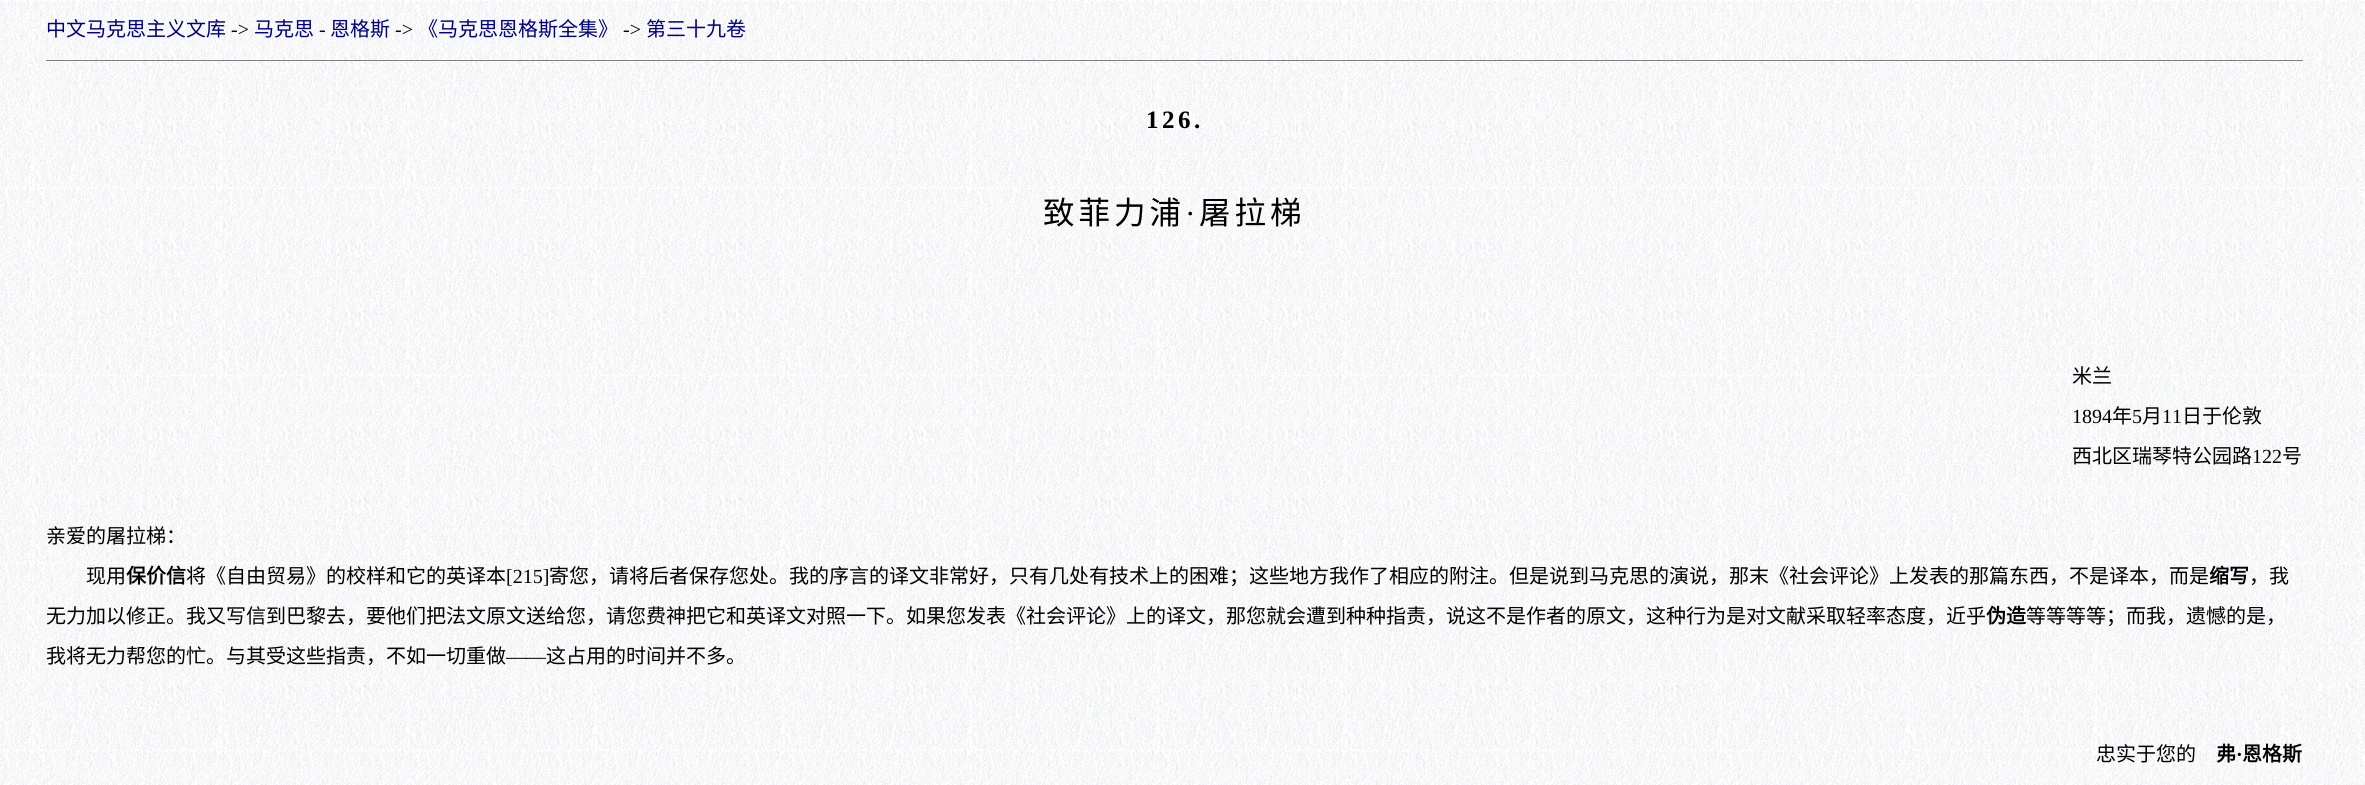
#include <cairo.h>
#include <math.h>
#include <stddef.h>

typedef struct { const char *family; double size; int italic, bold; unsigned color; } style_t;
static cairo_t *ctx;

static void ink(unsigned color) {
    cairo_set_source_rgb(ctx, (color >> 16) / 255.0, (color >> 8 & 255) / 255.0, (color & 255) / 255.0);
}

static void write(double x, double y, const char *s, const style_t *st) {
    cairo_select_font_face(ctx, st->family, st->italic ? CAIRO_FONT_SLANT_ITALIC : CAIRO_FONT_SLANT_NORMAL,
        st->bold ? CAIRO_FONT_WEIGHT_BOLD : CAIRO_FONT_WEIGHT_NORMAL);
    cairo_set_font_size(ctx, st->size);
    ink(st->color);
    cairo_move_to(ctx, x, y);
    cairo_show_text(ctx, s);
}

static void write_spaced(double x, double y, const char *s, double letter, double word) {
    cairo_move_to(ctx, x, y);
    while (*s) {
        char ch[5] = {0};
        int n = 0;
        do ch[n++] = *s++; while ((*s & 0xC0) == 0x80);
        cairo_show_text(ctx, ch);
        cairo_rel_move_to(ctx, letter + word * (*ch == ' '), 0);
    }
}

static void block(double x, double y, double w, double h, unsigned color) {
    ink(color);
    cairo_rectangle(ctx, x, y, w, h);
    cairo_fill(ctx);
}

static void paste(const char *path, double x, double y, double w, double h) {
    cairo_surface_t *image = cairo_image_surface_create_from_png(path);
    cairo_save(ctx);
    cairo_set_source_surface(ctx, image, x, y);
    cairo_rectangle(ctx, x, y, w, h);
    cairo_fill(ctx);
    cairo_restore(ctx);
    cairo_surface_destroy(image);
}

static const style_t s1 = {"Noto Sans CJK SC", 20, 0, 0, 0x000080};
static const style_t s2 = {"Liberation Serif", 20, 0, 0, 0x000000};
static const style_t s3 = {"Noto Sans CJK SC", 20, 0, 0, 0x000000};
static const style_t s4 = {"Noto Sans CJK SC", 20, 0, 1, 0x000000};
static const style_t s5 = {"Liberation Serif", 20, 0, 1, 0x000000};

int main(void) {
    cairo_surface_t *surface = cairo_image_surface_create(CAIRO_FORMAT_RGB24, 2365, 785);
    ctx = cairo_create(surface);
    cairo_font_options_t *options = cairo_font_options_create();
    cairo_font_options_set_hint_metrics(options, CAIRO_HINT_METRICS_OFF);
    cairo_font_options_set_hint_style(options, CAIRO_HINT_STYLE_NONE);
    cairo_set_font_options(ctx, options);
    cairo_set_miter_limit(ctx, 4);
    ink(0xffffff);
    cairo_paint(ctx);
    paste("pic1.png", 0, 0, 2365, 785);
    write(46, 36, "中文马克思主义文库", &s1);
    write(231, 36, "->", &s2);
    write(254, 36, "马克思", &s1);
    write(319, 36, "-", &s2);
    write(330, 36, "恩格斯", &s1);
    write(395, 36, "->", &s2);
    write(418, 36, "《马克思恩格斯全集》", &s1);
    write(623, 36, "->", &s2);
    write(646, 36, "第三十九卷", &s1);
    block(46, 60, 2257, 1, 0x808080);
    cairo_select_font_face(ctx, "Liberation Serif", CAIRO_FONT_SLANT_NORMAL, CAIRO_FONT_WEIGHT_BOLD);
    cairo_set_font_size(ctx, 25);
    ink(0x000000);
    write_spaced(1146, 128, "126.", 3.5, 0);
    cairo_select_font_face(ctx, "Noto Sans CJK SC", CAIRO_FONT_SLANT_NORMAL, CAIRO_FONT_WEIGHT_NORMAL);
    cairo_set_font_size(ctx, 31.5);
    write_spaced(1043, 224, "致菲力浦", 4, 0);
    cairo_select_font_face(ctx, "Liberation Serif", CAIRO_FONT_SLANT_NORMAL, CAIRO_FONT_WEIGHT_NORMAL);
    write_spaced(1185, 224, "·", 4, 0);
    cairo_select_font_face(ctx, "Noto Sans CJK SC", CAIRO_FONT_SLANT_NORMAL, CAIRO_FONT_WEIGHT_NORMAL);
    write_spaced(1199, 224, "屠拉梯", 4, 0);
    write(2072, 383, "米兰", &s3);
    write(2072, 423, "1894", &s2);
    write(2112, 423, "年", &s3);
    write(2132, 423, "5", &s2);
    write(2142, 423, "月", &s3);
    write(2162, 423, "11", &s2);
    write(2182, 423, "日于伦敦", &s3);
    write(2072, 463, "西北区瑞琴特公园路", &s3);
    write(2252, 463, "122", &s2);
    write(2282, 463, "号", &s3);
    write(46, 543, "亲爱的屠拉梯：", &s3);
    write(86, 583, "现用", &s3);
    write(126, 583, "保价信", &s4);
    write(186, 583, "将《自由贸易》的校样和它的英译本", &s3);
    write(506, 583, "[215]", &s2);
    write(549, 583, "寄您，请将后者保存您处。我的序言的译文非常好，只有几处有技术上的困难；这些地方我作了相应的附注。但是说到马克思的演说，那末《社会评论》上发表的那篇东西，不是译本，而是", &s3);
    write(2209, 583, "缩写", &s4);
    write(2249, 583, "，我", &s3);
    write(46, 623, "无力加以修正。我又写信到巴黎去，要他们把法文原文送给您，请您费神把它和英译文对照一下。如果您发表《社会评论》上的译文，那您就会遭到种种指责，说这不是作者的原文，这种行为是对文献采取轻率态度，近乎", &s3);
    write(1986, 623, "伪造", &s4);
    write(2026, 623, "等等等等；而我，遗憾的是，", &s3);
    write(46, 663, "我将无力帮您的忙。与其受这些指责，不如一切重做", &s3);
    write(506, 663, "——", &s2);
    write(546, 663, "这占用的时间并不多。", &s3);
    write(2096, 761, "忠实于您的", &s3);
    write(2216, 761, "弗", &s4);
    write(2236, 761, "·", &s5);
    write(2242, 761, "恩格斯", &s4);
    cairo_surface_write_to_png(surface, "screenshot.png");
    cairo_font_options_destroy(options);
    cairo_destroy(ctx);
    cairo_surface_destroy(surface);
    return 0;
}
